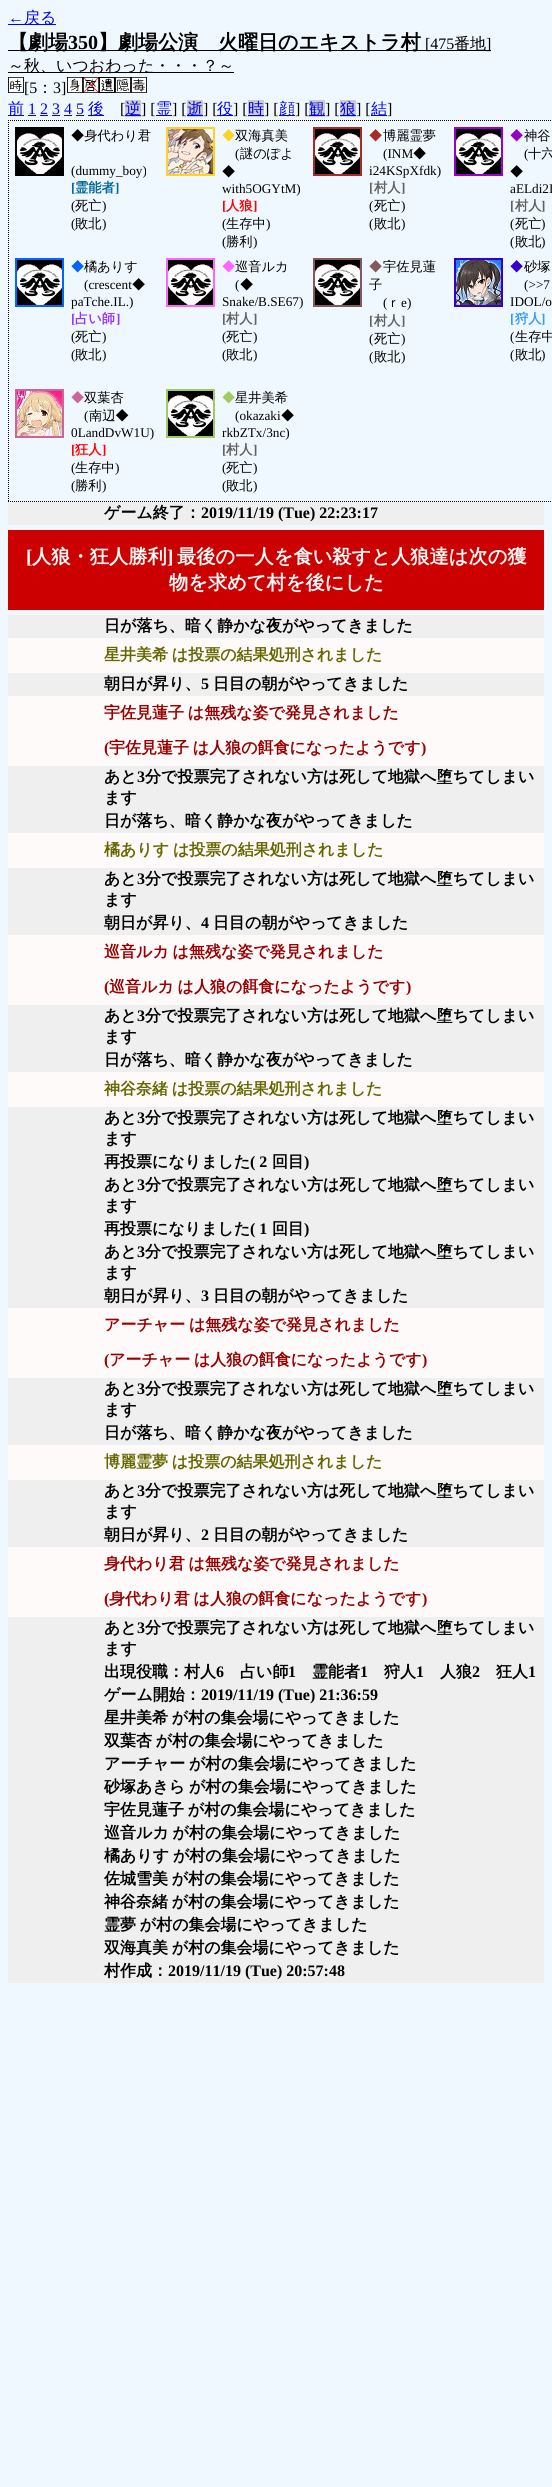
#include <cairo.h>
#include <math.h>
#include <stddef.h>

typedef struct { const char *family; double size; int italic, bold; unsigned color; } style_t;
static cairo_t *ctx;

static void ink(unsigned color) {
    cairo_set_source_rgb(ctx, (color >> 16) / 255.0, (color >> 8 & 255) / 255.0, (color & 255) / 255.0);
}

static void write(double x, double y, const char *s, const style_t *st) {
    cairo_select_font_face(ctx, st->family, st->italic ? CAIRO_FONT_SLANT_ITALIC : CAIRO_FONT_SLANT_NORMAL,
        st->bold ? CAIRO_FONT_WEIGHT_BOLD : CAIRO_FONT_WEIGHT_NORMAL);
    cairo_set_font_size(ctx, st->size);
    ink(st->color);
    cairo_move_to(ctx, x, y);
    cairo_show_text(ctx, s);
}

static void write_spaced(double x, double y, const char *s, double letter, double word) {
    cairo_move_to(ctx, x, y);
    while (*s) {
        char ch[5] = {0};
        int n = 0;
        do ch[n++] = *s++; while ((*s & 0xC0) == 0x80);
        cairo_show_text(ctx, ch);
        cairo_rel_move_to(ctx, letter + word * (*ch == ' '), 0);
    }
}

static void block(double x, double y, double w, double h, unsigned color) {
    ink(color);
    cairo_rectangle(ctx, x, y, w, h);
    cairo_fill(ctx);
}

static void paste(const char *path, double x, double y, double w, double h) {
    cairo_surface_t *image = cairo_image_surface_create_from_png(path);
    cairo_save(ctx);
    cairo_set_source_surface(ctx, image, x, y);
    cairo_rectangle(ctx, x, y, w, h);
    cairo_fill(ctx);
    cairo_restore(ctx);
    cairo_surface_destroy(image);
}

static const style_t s1 = {"Liberation Serif", 16, 0, 0, 0x0000ff};
static const style_t s2 = {"WenQuanYi Zen Hei Medium", 16, 0, 0, 0x0000ff};
static const style_t s3 = {"WenQuanYi Zen Hei", 20, 0, 1, 0x000000};
static const style_t s4 = {"Liberation Serif", 20, 0, 1, 0x000000};
static const style_t s5 = {"Liberation Serif", 16, 0, 0, 0x000000};
static const style_t s6 = {"WenQuanYi Zen Hei Medium", 16, 0, 0, 0x000000};
static const style_t s7 = {"WenQuanYi Zen Hei Medium", 13.25, 0, 0, 0x000000};
static const style_t s8 = {"Liberation Serif", 13.25, 0, 0, 0x000000};
static const style_t s9 = {"Liberation Serif", 13.25, 0, 1, 0x006699};
static const style_t s10 = {"WenQuanYi Zen Hei", 13.25, 0, 1, 0x006699};
static const style_t s11 = {"WenQuanYi Zen Hei Medium", 13.25, 0, 0, 0xfcd424};
static const style_t s12 = {"Liberation Serif", 13.25, 0, 1, 0xff0000};
static const style_t s13 = {"WenQuanYi Zen Hei", 13.25, 0, 1, 0xff0000};
static const style_t s14 = {"WenQuanYi Zen Hei Medium", 13.25, 0, 0, 0xa62c27};
static const style_t s15 = {"Liberation Serif", 13.25, 0, 1, 0x606060};
static const style_t s16 = {"WenQuanYi Zen Hei", 13.25, 0, 1, 0x606060};
static const style_t s17 = {"WenQuanYi Zen Hei Medium", 13.25, 0, 0, 0x9900cc};
static const style_t s18 = {"WenQuanYi Zen Hei Medium", 13.25, 0, 0, 0x0066ff};
static const style_t s19 = {"Liberation Serif", 13.25, 0, 1, 0x9933ff};
static const style_t s20 = {"WenQuanYi Zen Hei", 13.25, 0, 1, 0x9933ff};
static const style_t s21 = {"WenQuanYi Zen Hei Medium", 13.25, 0, 0, 0xff66ff};
static const style_t s22 = {"WenQuanYi Zen Hei Medium", 13.25, 0, 0, 0x835a59};
static const style_t s23 = {"WenQuanYi Zen Hei Medium", 13.25, 0, 0, 0x3300cc};
static const style_t s24 = {"Liberation Serif", 13.25, 0, 1, 0x3399ff};
static const style_t s25 = {"WenQuanYi Zen Hei", 13.25, 0, 1, 0x3399ff};
static const style_t s26 = {"WenQuanYi Zen Hei Medium", 13.25, 0, 0, 0xcc6699};
static const style_t s27 = {"WenQuanYi Zen Hei Medium", 13.25, 0, 0, 0xa1ca62};
static const style_t s28 = {"WenQuanYi Zen Hei", 16, 0, 1, 0x000000};
static const style_t s29 = {"Liberation Serif", 16, 0, 1, 0x000000};
static const style_t s30 = {"Liberation Serif", 19.25, 0, 1, 0xfffafa};
static const style_t s31 = {"WenQuanYi Zen Hei", 19.25, 0, 1, 0xfffafa};
static const style_t s32 = {"Liberation Serif", 16, 0, 1, 0x990000};

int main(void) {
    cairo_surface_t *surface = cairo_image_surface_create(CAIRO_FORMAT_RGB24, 552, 2487);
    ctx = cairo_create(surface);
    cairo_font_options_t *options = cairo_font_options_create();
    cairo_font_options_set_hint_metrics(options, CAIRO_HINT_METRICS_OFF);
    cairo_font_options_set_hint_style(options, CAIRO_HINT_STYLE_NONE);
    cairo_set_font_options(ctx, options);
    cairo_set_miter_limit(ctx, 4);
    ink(0xf0f8ff);
    cairo_paint(ctx);
    write(8, 23, "←", &s1);
    block(8, 24, 48, 1, 0x0000ff);
    write(24, 23, "戻る", &s2);
    block(8, 50, 483, 1, 0x000000);
    write(8, 49, "【劇場", &s3);
    write(68, 49, "350", &s4);
    write(98, 49, "】劇場公演　火曜日のエキストラ村", &s3);
    write(425, 49, "[475", &s5);
    write(454, 49, "番地", &s6);
    write(486, 49, "]", &s5);
    block(8, 72, 226, 1, 0x000000);
    write(8, 71, "～秋、いつおわった・・・？～", &s6);
    paste("pic1.png", 8, 77, 16, 16);
    write(24, 93, "[5", &s5);
    write(37, 93, "：", &s6);
    write(53, 93, "3]", &s5);
    paste("pic2.png", 67, 77, 16, 16);
    paste("pic3.png", 83, 77, 16, 16);
    paste("pic4.png", 99, 77, 16, 16);
    paste("pic5.png", 115, 77, 16, 16);
    paste("pic6.png", 131, 77, 16, 16);
    block(8, 115, 16, 1, 0x0000ff);
    write(8, 114, "前", &s2);
    write(28, 114, "1 2 3 4 5", &s1);
    block(28, 115, 8, 1, 0x0000ff);
    block(88, 115, 16, 1, 0x0000ff);
    write(88, 114, "後", &s2);
    write(120, 114, "[", &s5);
    block(125, 100, 16, 17, 0xcccccc);
    block(125, 115, 16, 1, 0x0000ff);
    write(125, 114, "逆", &s2);
    write(141, 114, "] [", &s5);
    block(156, 115, 16, 1, 0x0000ff);
    write(156, 114, "霊", &s2);
    write(172, 114, "] [", &s5);
    block(187, 100, 16, 17, 0xcccccc);
    block(187, 115, 16, 1, 0x0000ff);
    write(187, 114, "逝", &s2);
    write(203, 114, "] [", &s5);
    block(217, 115, 16, 1, 0x0000ff);
    write(217, 114, "役", &s2);
    write(233, 114, "] [", &s5);
    block(248, 100, 16, 17, 0xcccccc);
    block(248, 115, 16, 1, 0x0000ff);
    write(248, 114, "時", &s2);
    write(264, 114, "] [", &s5);
    block(279, 115, 16, 1, 0x0000ff);
    write(279, 114, "顔", &s2);
    write(295, 114, "] [", &s5);
    block(309, 100, 16, 17, 0xcccccc);
    block(309, 115, 16, 1, 0x0000ff);
    write(309, 114, "観", &s2);
    write(325, 114, "] [", &s5);
    block(340, 100, 16, 17, 0xcccccc);
    block(340, 115, 16, 1, 0x0000ff);
    write(340, 114, "狼", &s2);
    write(356, 114, "] [", &s5);
    block(371, 115, 16, 1, 0x0000ff);
    write(371, 114, "結", &s2);
    write(387, 114, "]", &s5);
    block(40, 115, 8, 1, 0x0000ff);
    block(52, 115, 8, 1, 0x0000ff);
    block(64, 115, 8, 1, 0x0000ff);
    block(76, 115, 8, 1, 0x0000ff);
    cairo_new_path(ctx);
    cairo_move_to(ctx, 8, 120.5);
    cairo_line_to(ctx, 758, 120.5);
    ink(0x000000);
    cairo_set_line_width(ctx, 1);
    cairo_set_dash(ctx, (double[]){1, 1}, 2, 0);
    cairo_stroke(ctx);
    cairo_new_path(ctx);
    cairo_move_to(ctx, 8, 501.5);
    cairo_line_to(ctx, 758, 501.5);
    cairo_stroke(ctx);
    cairo_new_path(ctx);
    cairo_move_to(ctx, 8.5, 120);
    cairo_line_to(ctx, 8.5, 502);
    cairo_stroke(ctx);
    cairo_rectangle(ctx, 16, 128, 47, 47);
    cairo_set_line_width(ctx, 2);
    cairo_set_dash(ctx, NULL, 0, 0);
    cairo_stroke(ctx);
    paste("pic7.png", 17, 129, 45, 45);
    write(71, 140, "◆身代わり君", &s7);
    write(71, 175, "(dummy_boy)", &s8);
    write(71, 192, "[", &s9);
    write(75, 192, "霊能者", &s10);
    write(115, 192, "]", &s9);
    write(71, 210, "(", &s8);
    write(75, 210, "死亡", &s7);
    write(102, 210, ")", &s8);
    write(71, 228, "(", &s8);
    write(75, 228, "敗北", &s7);
    write(102, 228, ")", &s8);
    cairo_rectangle(ctx, 167, 128, 47, 47);
    ink(0xfcd424);
    cairo_stroke(ctx);
    paste("pic8.png", 168, 129, 45, 45);
    write(222, 140, "◆", &s11);
    write(235, 140, "双海真美", &s7);
    write(235, 158, "(", &s8);
    write(240, 158, "謎のぽよ", &s7);
    write(222, 176, "◆", &s7);
    write(222, 193, "with5OGYtM)", &s8);
    write(222, 210, "[", &s12);
    write(226, 210, "人狼", &s13);
    write(253, 210, "]", &s12);
    write(222, 228, "(", &s8);
    write(226, 228, "生存中", &s7);
    write(266, 228, ")", &s8);
    write(222, 246, "(", &s8);
    write(226, 246, "勝利", &s7);
    write(253, 246, ")", &s8);
    cairo_rectangle(ctx, 314, 128, 47, 47);
    ink(0xa62c27);
    cairo_stroke(ctx);
    paste("pic7.png", 315, 129, 45, 45);
    write(369, 140, "◆", &s14);
    write(383, 140, "博麗霊夢", &s7);
    write(383, 158, "(INM", &s8);
    write(413, 158, "◆", &s7);
    write(369, 175, "i24KSpXfdk)", &s8);
    write(369, 192, "[", &s15);
    write(374, 192, "村人", &s16);
    write(401, 192, "]", &s15);
    write(369, 210, "(", &s8);
    write(374, 210, "死亡", &s7);
    write(401, 210, ")", &s8);
    write(369, 228, "(", &s8);
    write(374, 228, "敗北", &s7);
    write(401, 228, ")", &s8);
    cairo_rectangle(ctx, 455, 128, 47, 47);
    ink(0x9900cc);
    cairo_stroke(ctx);
    paste("pic7.png", 456, 129, 45, 45);
    write(510, 140, "◆", &s17);
    write(524, 140, "神谷", &s7);
    write(524, 158, "(", &s8);
    write(528, 158, "十六", &s7);
    write(510, 176, "◆", &s7);
    write(510, 193, "aELdi2I", &s8);
    write(510, 210, "[", &s15);
    write(515, 210, "村人", &s16);
    write(541, 210, "]", &s15);
    write(510, 228, "(", &s8);
    write(515, 228, "死亡", &s7);
    write(541, 228, ")", &s8);
    write(510, 246, "(", &s8);
    write(515, 246, "敗北", &s7);
    write(541, 246, ")", &s8);
    cairo_rectangle(ctx, 16, 259, 47, 47);
    ink(0x0066ff);
    cairo_stroke(ctx);
    paste("pic7.png", 17, 260, 45, 45);
    write(71, 271, "◆", &s18);
    write(84, 271, "橘ありす", &s7);
    write(84, 289, "(crescent", &s8);
    write(132, 289, "◆", &s7);
    write(71, 306, "paTche.IL.)", &s8);
    write(71, 323, "[", &s19);
    write(75, 323, "占い師", &s20);
    write(116, 323, "]", &s19);
    write(71, 341, "(", &s8);
    write(75, 341, "死亡", &s7);
    write(102, 341, ")", &s8);
    write(71, 359, "(", &s8);
    write(75, 359, "敗北", &s7);
    write(102, 359, ")", &s8);
    cairo_rectangle(ctx, 167, 259, 47, 47);
    ink(0xff66ff);
    cairo_stroke(ctx);
    paste("pic7.png", 168, 260, 45, 45);
    write(222, 271, "◆", &s21);
    write(235, 271, "巡音ルカ", &s7);
    write(235, 289, "(", &s8);
    write(240, 289, "◆", &s7);
    write(222, 306, "Snake/B.SE67)", &s8);
    write(222, 323, "[", &s15);
    write(226, 323, "村人", &s16);
    write(253, 323, "]", &s15);
    write(222, 341, "(", &s8);
    write(226, 341, "死亡", &s7);
    write(253, 341, ")", &s8);
    write(222, 359, "(", &s8);
    write(226, 359, "敗北", &s7);
    write(253, 359, ")", &s8);
    cairo_rectangle(ctx, 314, 259, 47, 47);
    ink(0x835a59);
    cairo_stroke(ctx);
    paste("pic7.png", 315, 260, 45, 45);
    write(369, 271, "◆", &s22);
    write(383, 271, "宇佐見蓮", &s7);
    write(369, 289, "子", &s7);
    write(383, 307, "(", &s8);
    write(387, 307, "ｒ", &s7);
    write(401, 307, "e)", &s8);
    write(369, 325, "[", &s15);
    write(374, 325, "村人", &s16);
    write(401, 325, "]", &s15);
    write(369, 343, "(", &s8);
    write(374, 343, "死亡", &s7);
    write(401, 343, ")", &s8);
    write(369, 361, "(", &s8);
    write(374, 361, "敗北", &s7);
    write(401, 361, ")", &s8);
    cairo_rectangle(ctx, 455, 259, 47, 47);
    ink(0x3300cc);
    cairo_stroke(ctx);
    paste("pic9.png", 456, 260, 45, 45);
    write(510, 271, "◆", &s23);
    write(524, 271, "砂塚", &s7);
    write(524, 289, "(>>7", &s8);
    write(510, 306, "IDOL/o", &s8);
    write(510, 323, "[", &s24);
    write(515, 323, "狩人", &s25);
    write(541, 323, "]", &s24);
    write(510, 341, "(", &s8);
    write(515, 341, "生存中", &s7);
    write(510, 359, "(", &s8);
    write(515, 359, "敗北", &s7);
    write(541, 359, ")", &s8);
    cairo_rectangle(ctx, 16, 390, 47, 47);
    ink(0xcc6699);
    cairo_stroke(ctx);
    paste("pic10.png", 17, 391, 45, 45);
    write(71, 402, "◆", &s26);
    write(84, 402, "双葉杏", &s7);
    write(84, 420, "(", &s8);
    write(89, 420, "南辺◆", &s7);
    write(71, 437, "0LandDvW1U)", &s8);
    write(71, 454, "[", &s12);
    write(75, 454, "狂人", &s13);
    write(102, 454, "]", &s12);
    write(71, 472, "(", &s8);
    write(75, 472, "生存中", &s7);
    write(115, 472, ")", &s8);
    write(71, 490, "(", &s8);
    write(75, 490, "勝利", &s7);
    write(102, 490, ")", &s8);
    cairo_rectangle(ctx, 167, 390, 47, 47);
    ink(0xa1ca62);
    cairo_stroke(ctx);
    paste("pic7.png", 168, 391, 45, 45);
    write(222, 402, "◆", &s27);
    write(235, 402, "星井美希", &s7);
    write(235, 420, "(okazaki", &s8);
    write(281, 420, "◆", &s7);
    write(222, 437, "rkbZTx/3nc)", &s8);
    write(222, 454, "[", &s15);
    write(226, 454, "村人", &s16);
    write(253, 454, "]", &s15);
    write(222, 472, "(", &s8);
    write(226, 472, "死亡", &s7);
    write(253, 472, ")", &s8);
    write(222, 490, "(", &s8);
    write(226, 490, "敗北", &s7);
    write(253, 490, ")", &s8);
    block(8, 502, 536, 23, 0xefefef);
    write(104, 518, "ゲーム終了：", &s28);
    write(201, 518, "2019/11/19 (Tue) 22:23:17", &s29);
    block(8, 530, 536, 80, 0xcc0000);
    write(26, 563, "[", &s30);
    write(32, 563, "人狼・狂人勝利", &s31);
    write(167, 563, "]", &s30);
    write(177, 563, "最後の一人を食い殺すと人狼達は次の獲", &s31);
    write(169, 589, "物を求めて村を後にした", &s31);
    block(8, 615, 536, 23, 0xefefef);
    write(104, 631, "日が落ち、暗く静かな夜がやってきました", &s28);
    block(8, 638, 536, 35, 0xfffafa);
    ink(0x666600);
    write_spaced(104, 660, "星井美希 は投票の結果処刑されました", 0, -1);
    block(8, 673, 536, 23, 0xefefef);
    write(104, 689, "朝日が昇り、", &s28);
    write(201, 689, "5", &s29);
    write(213, 689, "日目の朝がやってきました", &s28);
    block(8, 696, 536, 70, 0xfffafa);
    ink(0x990000);
    write_spaced(104, 718, "宇佐見蓮子 は無残な姿で発見されました", 0, -1);
    write(104, 753, "(", &s32);
    cairo_select_font_face(ctx, "WenQuanYi Zen Hei", CAIRO_FONT_SLANT_NORMAL, CAIRO_FONT_WEIGHT_BOLD);
    write_spaced(109, 753, "宇佐見蓮子 は人狼の餌食になったようです", 0, -1);
    write(421, 753, ")", &s32);
    block(8, 766, 536, 67, 0xefefef);
    write(104, 782, "あと", &s28);
    write(137, 782, "3", &s29);
    write(145, 782, "分で投票完了されない方は死して地獄へ堕ちてしまい", &s28);
    write(104, 803, "ます", &s28);
    write(104, 826, "日が落ち、暗く静かな夜がやってきました", &s28);
    block(8, 833, 536, 35, 0xfffafa);
    ink(0x666600);
    write_spaced(104, 855, "橘ありす は投票の結果処刑されました", 0, -1);
    block(8, 868, 536, 67, 0xefefef);
    write(104, 884, "あと", &s28);
    write(137, 884, "3", &s29);
    write(145, 884, "分で投票完了されない方は死して地獄へ堕ちてしまい", &s28);
    write(104, 905, "ます", &s28);
    write(104, 928, "朝日が昇り、", &s28);
    write(201, 928, "4", &s29);
    write(213, 928, "日目の朝がやってきました", &s28);
    block(8, 935, 536, 70, 0xfffafa);
    ink(0x990000);
    write_spaced(104, 957, "巡音ルカ は無残な姿で発見されました", 0, -1);
    write(104, 992, "(", &s32);
    cairo_select_font_face(ctx, "WenQuanYi Zen Hei", CAIRO_FONT_SLANT_NORMAL, CAIRO_FONT_WEIGHT_BOLD);
    write_spaced(109, 992, "巡音ルカ は人狼の餌食になったようです", 0, -1);
    write(406, 992, ")", &s32);
    block(8, 1005, 536, 67, 0xefefef);
    write(104, 1021, "あと", &s28);
    write(137, 1021, "3", &s29);
    write(145, 1021, "分で投票完了されない方は死して地獄へ堕ちてしまい", &s28);
    write(104, 1042, "ます", &s28);
    write(104, 1065, "日が落ち、暗く静かな夜がやってきました", &s28);
    block(8, 1072, 536, 35, 0xfffafa);
    ink(0x666600);
    write_spaced(104, 1094, "神谷奈緒 は投票の結果処刑されました", 0, -1);
    block(8, 1107, 536, 201, 0xefefef);
    write(104, 1123, "あと", &s28);
    write(137, 1123, "3", &s29);
    write(145, 1123, "分で投票完了されない方は死して地獄へ堕ちてしまい", &s28);
    write(104, 1144, "ます", &s28);
    write(104, 1167, "再投票になりました", &s28);
    write(250, 1167, "( 2", &s29);
    write(272, 1167, "回目", &s28);
    write(304, 1167, ")", &s29);
    write(104, 1190, "あと", &s28);
    write(137, 1190, "3", &s29);
    write(145, 1190, "分で投票完了されない方は死して地獄へ堕ちてしまい", &s28);
    write(104, 1211, "ます", &s28);
    write(104, 1234, "再投票になりました", &s28);
    write(250, 1234, "( 1", &s29);
    write(272, 1234, "回目", &s28);
    write(304, 1234, ")", &s29);
    write(104, 1257, "あと", &s28);
    write(137, 1257, "3", &s29);
    write(145, 1257, "分で投票完了されない方は死して地獄へ堕ちてしまい", &s28);
    write(104, 1278, "ます", &s28);
    write(104, 1301, "朝日が昇り、", &s28);
    write(201, 1301, "3", &s29);
    write(213, 1301, "日目の朝がやってきました", &s28);
    block(8, 1308, 536, 70, 0xfffafa);
    ink(0x990000);
    write_spaced(104, 1330, "アーチャー は無残な姿で発見されました", 0, -1);
    write(104, 1365, "(", &s32);
    cairo_select_font_face(ctx, "WenQuanYi Zen Hei", CAIRO_FONT_SLANT_NORMAL, CAIRO_FONT_WEIGHT_BOLD);
    write_spaced(109, 1365, "アーチャー は人狼の餌食になったようです", 0, -1);
    write(422, 1365, ")", &s32);
    block(8, 1378, 536, 67, 0xefefef);
    write(104, 1394, "あと", &s28);
    write(137, 1394, "3", &s29);
    write(145, 1394, "分で投票完了されない方は死して地獄へ堕ちてしまい", &s28);
    write(104, 1415, "ます", &s28);
    write(104, 1438, "日が落ち、暗く静かな夜がやってきました", &s28);
    block(8, 1445, 536, 35, 0xfffafa);
    ink(0x666600);
    write_spaced(104, 1467, "博麗霊夢 は投票の結果処刑されました", 0, -1);
    block(8, 1480, 536, 67, 0xefefef);
    write(104, 1496, "あと", &s28);
    write(137, 1496, "3", &s29);
    write(145, 1496, "分で投票完了されない方は死して地獄へ堕ちてしまい", &s28);
    write(104, 1517, "ます", &s28);
    write(104, 1540, "朝日が昇り、", &s28);
    write(201, 1540, "2", &s29);
    write(213, 1540, "日目の朝がやってきました", &s28);
    block(8, 1547, 536, 70, 0xfffafa);
    ink(0x990000);
    write_spaced(104, 1569, "身代わり君 は無残な姿で発見されました", 0, -1);
    write(104, 1604, "(", &s32);
    cairo_select_font_face(ctx, "WenQuanYi Zen Hei", CAIRO_FONT_SLANT_NORMAL, CAIRO_FONT_WEIGHT_BOLD);
    write_spaced(109, 1604, "身代わり君 は人狼の餌食になったようです", 0, -1);
    write(422, 1604, ")", &s32);
    block(8, 1617, 536, 366, 0xefefef);
    write(104, 1633, "あと", &s28);
    write(137, 1633, "3", &s29);
    write(145, 1633, "分で投票完了されない方は死して地獄へ堕ちてしまい", &s28);
    write(104, 1654, "ます", &s28);
    write(104, 1677, "出現役職：村人", &s28);
    write(216, 1677, "6", &s29);
    write(240, 1677, "占い師", &s28);
    write(288, 1677, "1", &s29);
    write(312, 1677, "霊能者", &s28);
    write(360, 1677, "1", &s29);
    write(384, 1677, "狩人", &s28);
    write(416, 1677, "1", &s29);
    write(440, 1677, "人狼", &s28);
    write(472, 1677, "2", &s29);
    write(496, 1677, "狂人", &s28);
    write(528, 1677, "1", &s29);
    write(104, 1700, "ゲーム開始：", &s28);
    write(201, 1700, "2019/11/19 (Tue) 21:36:59", &s29);
    cairo_select_font_face(ctx, "WenQuanYi Zen Hei", CAIRO_FONT_SLANT_NORMAL, CAIRO_FONT_WEIGHT_BOLD);
    write_spaced(104, 1723, "星井美希 が村の集会場にやってきました", 0, -1);
    write_spaced(104, 1746, "双葉杏 が村の集会場にやってきました", 0, -1);
    write_spaced(104, 1769, "アーチャー が村の集会場にやってきました", 0, -1);
    write_spaced(104, 1792, "砂塚あきら が村の集会場にやってきました", 0, -1);
    write_spaced(104, 1815, "宇佐見蓮子 が村の集会場にやってきました", 0, -1);
    write_spaced(104, 1838, "巡音ルカ が村の集会場にやってきました", 0, -1);
    write_spaced(104, 1861, "橘ありす が村の集会場にやってきました", 0, -1);
    write_spaced(104, 1884, "佐城雪美 が村の集会場にやってきました", 0, -1);
    write_spaced(104, 1907, "神谷奈緒 が村の集会場にやってきました", 0, -1);
    write_spaced(104, 1930, "霊夢 が村の集会場にやってきました", 0, -1);
    write_spaced(104, 1953, "双海真美 が村の集会場にやってきました", 0, -1);
    write(104, 1976, "村作成：", &s28);
    write(168, 1976, "2019/11/19 (Tue) 20:57:48", &s29);
    cairo_surface_write_to_png(surface, "screenshot.png");
    cairo_font_options_destroy(options);
    cairo_destroy(ctx);
    cairo_surface_destroy(surface);
    return 0;
}
